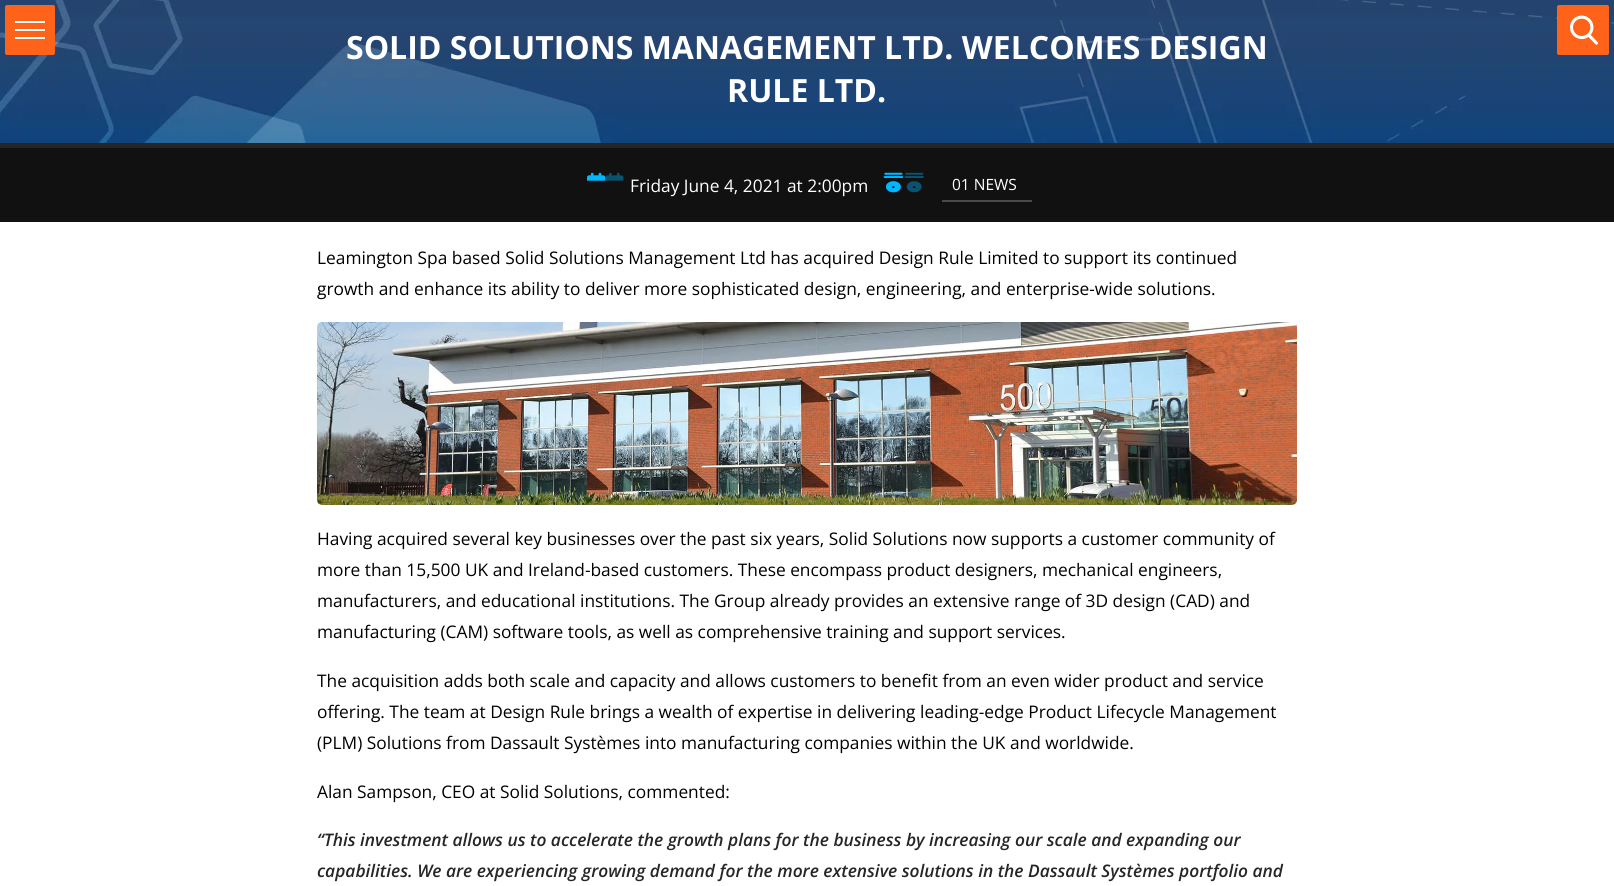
#include <cairo.h>
#include <math.h>
#include <stddef.h>

typedef struct { const char *family; double size; int italic, bold; unsigned color; } style_t;
static cairo_t *ctx;

static void ink(unsigned color) {
    cairo_set_source_rgb(ctx, (color >> 16) / 255.0, (color >> 8 & 255) / 255.0, (color & 255) / 255.0);
}

static void write(double x, double y, const char *s, const style_t *st) {
    cairo_select_font_face(ctx, st->family, st->italic ? CAIRO_FONT_SLANT_ITALIC : CAIRO_FONT_SLANT_NORMAL,
        st->bold ? CAIRO_FONT_WEIGHT_BOLD : CAIRO_FONT_WEIGHT_NORMAL);
    cairo_set_font_size(ctx, st->size);
    ink(st->color);
    cairo_move_to(ctx, x, y);
    cairo_show_text(ctx, s);
}

static void block(double x, double y, double w, double h, unsigned color) {
    ink(color);
    cairo_rectangle(ctx, x, y, w, h);
    cairo_fill(ctx);
}

static void round_path(double x, double y, double w, double h, double r) {
    cairo_new_sub_path(ctx);
    cairo_arc(ctx, x + w - r, y + h - r, r, 0, M_PI / 2);
    cairo_arc(ctx, x + r, y + h - r, r, M_PI / 2, M_PI);
    cairo_arc(ctx, x + r, y + r, r, M_PI, 1.5 * M_PI);
    cairo_arc(ctx, x + w - r, y + r, r, 1.5 * M_PI, 2 * M_PI);
    cairo_close_path(ctx);
}

static void paste(const char *path, double x, double y, double w, double h) {
    cairo_surface_t *image = cairo_image_surface_create_from_png(path);
    cairo_save(ctx);
    cairo_set_source_surface(ctx, image, x, y);
    cairo_rectangle(ctx, x, y, w, h);
    cairo_fill(ctx);
    cairo_restore(ctx);
    cairo_surface_destroy(image);
}

static const style_t s1 = {"Open Sans", 32, 0, 1, 0xffffff};
static const style_t s2 = {"Open Sans", 17.33, 0, 0, 0xffffff};
static const style_t s3 = {"Open Sans", 15.5, 0, 0, 0xffffff};
static const style_t s4 = {"Open Sans", 17.33, 0, 0, 0x000000};
static const style_t s5 = {"Open Sans SemiBold", 17.33, 1, 0, 0x262626};

int main(void) {
    cairo_surface_t *surface = cairo_image_surface_create(CAIRO_FORMAT_RGB24, 1614, 886);
    ctx = cairo_create(surface);
    cairo_font_options_t *options = cairo_font_options_create();
    cairo_font_options_set_hint_metrics(options, CAIRO_HINT_METRICS_OFF);
    cairo_font_options_set_hint_style(options, CAIRO_HINT_STYLE_NONE);
    cairo_set_font_options(ctx, options);
    cairo_set_miter_limit(ctx, 4);
    ink(0xffffff);
    cairo_paint(ctx);
    paste("pic2.png", 0, 0, 1614, 143);
    ink(0xff6319);
    round_path(5, 5, 50, 50, 2);
    cairo_fill(ctx);
    block(15, 29, 30, 2, 0xffffff);
    block(15, 21, 30, 2, 0xffffff);
    block(15, 37, 30, 2, 0xffffff);
    ink(0xff6319);
    round_path(1557, 5, 52, 50, 2);
    cairo_fill(ctx);
    paste("pic1.png", 1570, 15, 28, 30);
    block(0, 143, 1614, 5, 0x262626);
    write(346, 59, "SOLID SOLUTIONS MANAGEMENT LTD. WELCOMES DESIGN", &s1);
    write(727, 102, "RULE LTD.", &s1);
    block(0, 148, 1614, 74, 0x111111);
    paste("pic3.png", 587, 172, 19, 9);
    paste("pic4.png", 587, 172, 37, 9);
    write(630, 192, "Friday June 4, 2021 at 2:00pm", &s2);
    paste("pic5.png", 883, 172, 21, 21);
    paste("pic6.png", 883, 172, 41, 21);
    block(942, 200, 90, 2, 0x4a4a4a);
    write(952, 190, "01 NEWS", &s3);
    write(317, 264, "Leamington Spa based Solid Solutions Management Ltd has acquired Design Rule Limited to support its continued", &s4);
    write(317, 295, "growth and enhance its ability to deliver more sophisticated design, engineering, and enterprise-wide solutions.", &s4);
    paste("pic7.png", 317, 322, 980, 183);
    write(317, 545, "Having acquired several key businesses over the past six years, Solid Solutions now supports a customer community of", &s4);
    write(317, 576, "more than 15,500 UK and Ireland-based customers. These encompass product designers, mechanical engineers,", &s4);
    write(317, 607, "manufacturers, and educational institutions. The Group already provides an extensive range of 3D design (CAD) and", &s4);
    write(317, 638, "manufacturing (CAM) software tools, as well as comprehensive training and support services.", &s4);
    write(317, 687, "The acquisition adds both scale and capacity and allows customers to benefit from an even wider product and service", &s4);
    write(317, 718, "offering. The team at Design Rule brings a wealth of expertise in delivering leading-edge Product Lifecycle Management", &s4);
    write(317, 749, "(PLM) Solutions from Dassault Systèmes into manufacturing companies within the UK and worldwide.", &s4);
    write(317, 798, "Alan Sampson, CEO at Solid Solutions, commented:", &s4);
    write(317, 846, "“This investment allows us to accelerate the growth plans for the business by increasing our scale and expanding our", &s5);
    write(317, 877, "capabilities. We are experiencing growing demand for the more extensive solutions in the Dassault Systèmes portfolio and", &s5);
    cairo_surface_write_to_png(surface, "screenshot.png");
    cairo_font_options_destroy(options);
    cairo_destroy(ctx);
    cairo_surface_destroy(surface);
    return 0;
}
